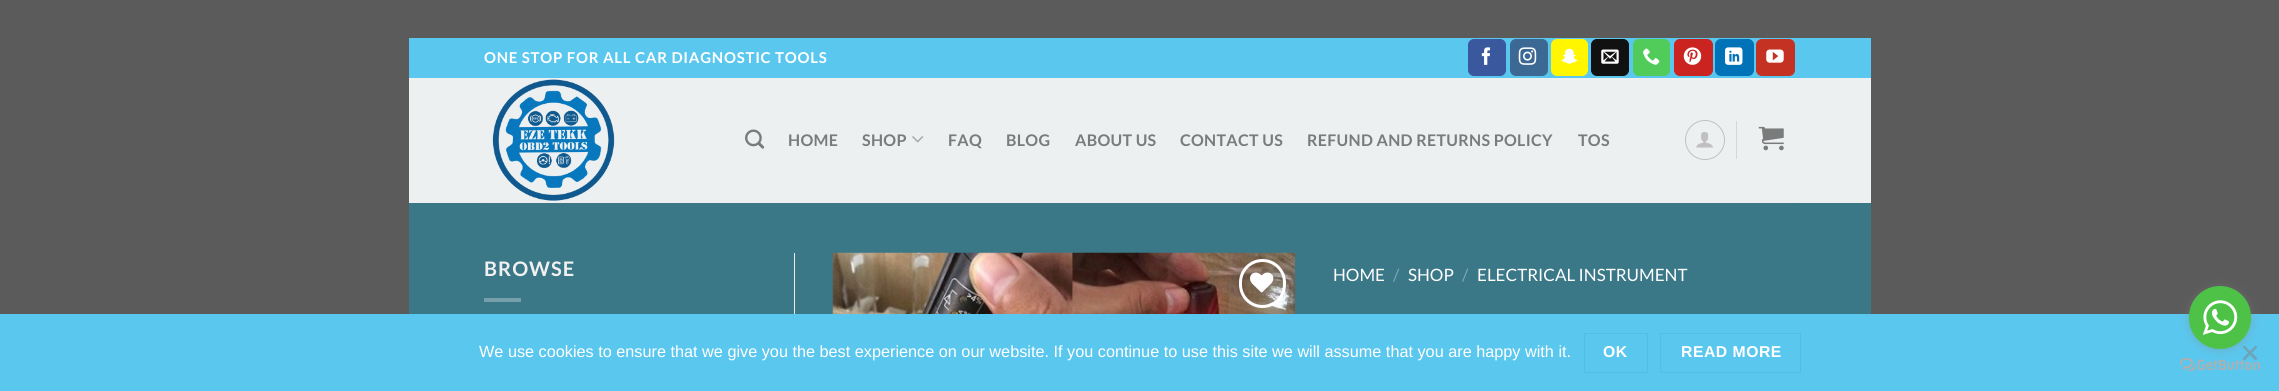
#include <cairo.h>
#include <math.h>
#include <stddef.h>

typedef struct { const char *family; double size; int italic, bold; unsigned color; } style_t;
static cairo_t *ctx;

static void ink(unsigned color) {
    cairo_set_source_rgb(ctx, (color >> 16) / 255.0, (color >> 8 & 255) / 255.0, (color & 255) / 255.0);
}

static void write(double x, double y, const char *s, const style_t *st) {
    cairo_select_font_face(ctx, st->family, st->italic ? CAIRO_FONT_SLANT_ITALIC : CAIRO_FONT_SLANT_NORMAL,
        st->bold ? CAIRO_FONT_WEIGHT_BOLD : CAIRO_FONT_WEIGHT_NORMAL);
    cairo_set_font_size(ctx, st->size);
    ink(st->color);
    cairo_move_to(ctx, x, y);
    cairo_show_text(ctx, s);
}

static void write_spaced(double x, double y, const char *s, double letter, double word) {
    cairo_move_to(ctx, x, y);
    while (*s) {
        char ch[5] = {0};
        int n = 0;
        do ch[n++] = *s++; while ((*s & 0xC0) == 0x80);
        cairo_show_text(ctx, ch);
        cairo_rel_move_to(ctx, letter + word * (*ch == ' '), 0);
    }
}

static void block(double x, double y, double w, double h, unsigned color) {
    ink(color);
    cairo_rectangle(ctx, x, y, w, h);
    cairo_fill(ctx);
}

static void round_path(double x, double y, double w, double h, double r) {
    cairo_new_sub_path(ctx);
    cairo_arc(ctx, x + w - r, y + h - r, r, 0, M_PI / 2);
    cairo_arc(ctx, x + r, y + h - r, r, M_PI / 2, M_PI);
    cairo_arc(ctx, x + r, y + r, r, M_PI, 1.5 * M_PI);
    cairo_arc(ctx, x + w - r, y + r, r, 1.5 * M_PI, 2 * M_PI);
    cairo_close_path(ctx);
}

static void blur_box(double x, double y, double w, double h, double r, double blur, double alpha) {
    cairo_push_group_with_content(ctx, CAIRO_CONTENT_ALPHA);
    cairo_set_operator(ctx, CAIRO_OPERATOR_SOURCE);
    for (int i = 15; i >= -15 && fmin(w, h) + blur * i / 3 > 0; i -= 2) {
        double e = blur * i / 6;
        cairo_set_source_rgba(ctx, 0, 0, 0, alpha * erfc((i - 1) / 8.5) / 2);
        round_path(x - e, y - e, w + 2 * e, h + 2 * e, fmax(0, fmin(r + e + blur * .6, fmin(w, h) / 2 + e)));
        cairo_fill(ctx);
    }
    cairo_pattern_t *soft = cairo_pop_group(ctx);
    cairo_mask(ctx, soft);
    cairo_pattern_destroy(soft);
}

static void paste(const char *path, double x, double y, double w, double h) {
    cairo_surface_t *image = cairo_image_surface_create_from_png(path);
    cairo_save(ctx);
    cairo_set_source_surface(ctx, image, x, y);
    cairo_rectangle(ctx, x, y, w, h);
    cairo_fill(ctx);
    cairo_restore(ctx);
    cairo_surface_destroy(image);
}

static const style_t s1 = {"Lato", 17, 0, 0, 0xffffff};
static const style_t s2 = {"Lato", 17, 0, 0, 0x7fa7b1};
static const style_t s3 = {"Liberation Sans", 16.25, 0, 0, 0xffffff};

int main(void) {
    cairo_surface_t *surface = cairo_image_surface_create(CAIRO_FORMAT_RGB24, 2279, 391);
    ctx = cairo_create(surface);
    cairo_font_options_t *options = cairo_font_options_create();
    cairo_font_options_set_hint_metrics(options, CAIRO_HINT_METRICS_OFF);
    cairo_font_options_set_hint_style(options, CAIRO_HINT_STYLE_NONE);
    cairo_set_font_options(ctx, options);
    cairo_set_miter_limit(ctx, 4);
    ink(0x5b5b5b);
    cairo_paint(ctx);
    block(409, 38, 1462, 40, 0x5ac7ee);
    cairo_select_font_face(ctx, "Lato", CAIRO_FONT_SLANT_NORMAL, CAIRO_FONT_WEIGHT_BOLD);
    cairo_set_font_size(ctx, 15);
    ink(0xffffff);
    write_spaced(484, 63, "ONE STOP FOR ALL CAR DIAGNOSTIC TOOLS", 0.75, 0);
    ink(0x3a589d);
    round_path(1468.5, 39.5, 37, 36, 5.5);
    cairo_fill_preserve(ctx);
    cairo_set_line_width(ctx, 1);
    cairo_stroke(ctx);
    paste("pic1.png", 1481, 47, 9, 18);
    ink(0x3b6994);
    round_path(1510.5, 39.5, 37, 36, 5.5);
    cairo_fill_preserve(ctx);
    cairo_stroke(ctx);
    paste("pic2.png", 1518, 47, 19, 18);
    ink(0xfff600);
    round_path(1551.5, 39.5, 36, 36, 5.5);
    cairo_fill_preserve(ctx);
    cairo_stroke(ctx);
    paste("pic3.png", 1561, 48, 17, 16);
    ink(0x111111);
    round_path(1591.5, 39.5, 37, 36, 5.5);
    cairo_fill_preserve(ctx);
    cairo_stroke(ctx);
    paste("pic4.png", 1601, 49, 18, 15);
    ink(0x51cb5a);
    round_path(1633.5, 39.5, 36, 36, 5.5);
    cairo_fill_preserve(ctx);
    cairo_stroke(ctx);
    paste("pic5.png", 1643, 48, 17, 17);
    ink(0xcb2320);
    round_path(1674.5, 39.5, 38, 36, 5.5);
    cairo_fill_preserve(ctx);
    cairo_stroke(ctx);
    paste("pic6.png", 1683, 47, 19, 18);
    ink(0x0072b7);
    round_path(1715.5, 39.5, 38, 36, 5.5);
    cairo_fill_preserve(ctx);
    cairo_stroke(ctx);
    paste("pic7.png", 1725, 47, 18, 18);
    ink(0xc33223);
    round_path(1756.5, 39.5, 38, 36, 5.5);
    cairo_fill_preserve(ctx);
    cairo_stroke(ctx);
    paste("pic8.png", 1766, 49, 18, 14);
    block(409, 78, 1462, 125, 0xedf0f1);
    paste("pic9.png", 492, 79, 123, 122);
    paste("pic10.png", 745, 129, 20, 20);
    cairo_set_font_size(ctx, 16);
    ink(0x7a7b7b);
    write_spaced(788, 146, "HOME", 0.3, 0);
    write_spaced(862, 146, "SHOP", 0.3, 0);
    paste("pic11.png", 912, 136, 12, 7);
    write_spaced(948, 146, "FAQ", 0.3, 0);
    write_spaced(1006, 146, "BLOG", 0.3, 0);
    write_spaced(1075, 146, "ABOUT US", 0.3, 0);
    write_spaced(1180, 146, "CONTACT US", 0.3, 0);
    write_spaced(1307, 146, "REFUND AND RETURNS POLICY", 0.3, 0);
    write_spaced(1578, 146, "TOS", 0.3, 0);
    cairo_new_path(ctx);
    cairo_arc(ctx, 1705, 140, 19.5, 0, 2 * M_PI);
    ink(0xc0c0c0);
    cairo_stroke(ctx);
    paste("pic12.png", 1696, 132, 17, 16);
    block(1736, 121, 1, 38, 0xd5d8d9);
    paste("pic13.png", 1758, 126, 26, 25);
    block(409, 203, 1462, 111, 0x3a7787);
    block(484, 203, 1312, 1, 0x407785);
    cairo_set_font_size(ctx, 20);
    ink(0xf1f1f1);
    write_spaced(484, 276, "BROWSE", 1, 0);
    block(484, 298, 37, 4, 0x75a0ab);
    block(794, 253, 1, 61, 0xececec);
    paste("pic14.png", 832, 252, 463, 62);
    round_path(1240.5, 260.5, 44, 46, 22);
    ink(0xffffff);
    cairo_set_line_width(ctx, 3);
    cairo_stroke(ctx);
    paste("pic15.png", 1250, 272, 24, 21);
    write(1333, 281, "HOME", &s1);
    write(1393, 281, "/", &s2);
    write(1408, 281, "SHOP", &s1);
    write(1462, 281, "/", &s2);
    write(1477, 281, "ELECTRICAL INSTRUMENT", &s1);
    block(0, 314, 2279, 77, 0x5ac7ee);
    write(479, 357, "We use cookies to ensure that we give you the best experience on our website. If you continue to use this site we will assume that you are happy with it.", &s3);
    cairo_rectangle(ctx, 1584.5, 333.5, 63, 39);
    ink(0x56bde2);
    cairo_set_line_width(ctx, 1);
    cairo_stroke(ctx);
    cairo_select_font_face(ctx, "Liberation Sans", CAIRO_FONT_SLANT_NORMAL, CAIRO_FONT_WEIGHT_BOLD);
    cairo_set_font_size(ctx, 15.75);
    ink(0xffffff);
    write_spaced(1603, 357, "OK", 0.5, 0);
    cairo_rectangle(ctx, 1660.5, 333.5, 140, 39);
    ink(0x56bde2);
    cairo_stroke(ctx);
    ink(0xffffff);
    write_spaced(1681, 357, "READ MORE", 0.5, 0);
    ink(0x6da4b7);
    cairo_new_path(ctx);
    cairo_move_to(ctx, 2255.5, 345.5);
    cairo_line_to(ctx, 2257.5, 347);
    cairo_line_to(ctx, 2244.5, 360.5);
    cairo_line_to(ctx, 2242.5, 358.5);
    cairo_close_path(ctx);
    cairo_fill(ctx);
    cairo_new_path(ctx);
    cairo_move_to(ctx, 2242.5, 347);
    cairo_line_to(ctx, 2244.5, 345.5);
    cairo_line_to(ctx, 2257.5, 358.5);
    cairo_line_to(ctx, 2255.5, 360.5);
    cairo_close_path(ctx);
    cairo_fill(ctx);
    paste("pic17.png", 2180, 358, 80, 13);
    ink(0x888888);
    blur_box(2189, 288, 62, 62, 31, 4.5, 0.4);
    ink(0x4dc247);
    round_path(2189, 286, 62, 63, 31);
    cairo_fill(ctx);
    paste("pic16.png", 2202, 300, 36, 35);
    cairo_surface_write_to_png(surface, "screenshot.png");
    cairo_font_options_destroy(options);
    cairo_destroy(ctx);
    cairo_surface_destroy(surface);
    return 0;
}
